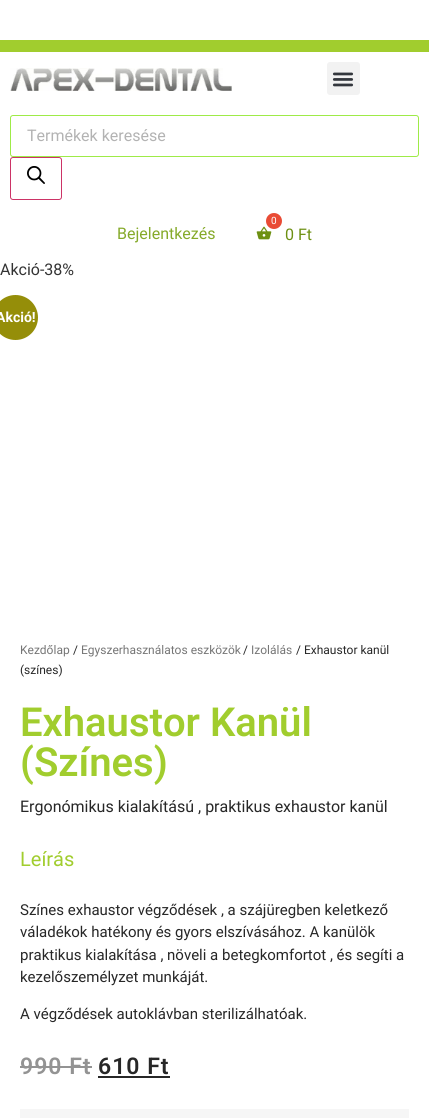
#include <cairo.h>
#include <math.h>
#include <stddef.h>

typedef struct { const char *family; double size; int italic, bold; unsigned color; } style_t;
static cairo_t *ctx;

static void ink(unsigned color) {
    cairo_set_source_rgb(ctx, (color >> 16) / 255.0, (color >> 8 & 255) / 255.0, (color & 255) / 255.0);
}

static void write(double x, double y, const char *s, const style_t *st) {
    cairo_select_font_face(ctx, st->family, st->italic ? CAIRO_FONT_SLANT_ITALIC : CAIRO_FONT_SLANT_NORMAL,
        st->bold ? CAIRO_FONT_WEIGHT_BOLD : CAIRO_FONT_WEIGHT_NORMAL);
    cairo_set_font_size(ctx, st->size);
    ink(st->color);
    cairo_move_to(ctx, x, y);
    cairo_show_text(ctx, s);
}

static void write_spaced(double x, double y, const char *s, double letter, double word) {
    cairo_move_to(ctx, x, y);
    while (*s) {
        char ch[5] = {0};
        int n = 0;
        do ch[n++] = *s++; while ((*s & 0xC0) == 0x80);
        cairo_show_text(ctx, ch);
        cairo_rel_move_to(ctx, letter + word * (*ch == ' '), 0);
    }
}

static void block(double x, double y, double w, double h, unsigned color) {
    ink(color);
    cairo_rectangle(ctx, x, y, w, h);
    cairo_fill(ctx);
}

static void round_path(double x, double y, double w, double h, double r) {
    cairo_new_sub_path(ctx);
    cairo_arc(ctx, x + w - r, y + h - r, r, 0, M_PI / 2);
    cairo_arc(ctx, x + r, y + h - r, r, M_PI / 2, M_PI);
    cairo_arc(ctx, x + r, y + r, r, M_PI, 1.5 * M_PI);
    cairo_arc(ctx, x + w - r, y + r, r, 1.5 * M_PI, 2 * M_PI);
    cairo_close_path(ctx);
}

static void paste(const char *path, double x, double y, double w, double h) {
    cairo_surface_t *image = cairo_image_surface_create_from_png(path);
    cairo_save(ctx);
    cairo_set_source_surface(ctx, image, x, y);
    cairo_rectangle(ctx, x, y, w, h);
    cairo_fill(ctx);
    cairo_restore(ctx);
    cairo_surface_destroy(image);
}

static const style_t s1 = {"Roboto", 16, 0, 0, 0xb3b3b3};
static const style_t s2 = {"Roboto", 16, 0, 0, 0x86aa2b};
static const style_t s3 = {"Roboto", 10, 0, 0, 0xffffff};
static const style_t s4 = {"Roboto", 16, 0, 0, 0x6d9012};
static const style_t s5 = {"Roboto", 16, 0, 0, 0x333333};
static const style_t s6 = {"Roboto", 14, 0, 1, 0xffffff};
static const style_t s7 = {"Roboto", 12, 0, 0, 0x767676};
static const style_t s8 = {"Roboto", 12, 0, 0, 0x272727};
static const style_t s9 = {"Roboto SemiBold", 40, 0, 0, 0xa1cd2e};
static const style_t s10 = {"Roboto", 16, 0, 0, 0x272727};
static const style_t s11 = {"Roboto", 20, 0, 0, 0xa1cd2e};
static const style_t s12 = {"Roboto", 15, 0, 0, 0x272727};

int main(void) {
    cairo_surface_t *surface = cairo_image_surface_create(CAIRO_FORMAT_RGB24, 429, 1118);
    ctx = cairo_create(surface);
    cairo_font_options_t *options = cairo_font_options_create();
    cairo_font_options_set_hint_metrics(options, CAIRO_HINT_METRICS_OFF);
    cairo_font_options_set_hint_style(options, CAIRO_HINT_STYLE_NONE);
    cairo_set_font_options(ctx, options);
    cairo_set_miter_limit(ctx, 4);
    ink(0xffffff);
    cairo_paint(ctx);
    block(0, 40, 429, 12, 0xa1cd2e);
    paste("pic1.png", 10, 68, 222, 23);
    ink(0xf2f2f2);
    round_path(327, 62, 33, 33, 3);
    cairo_fill(ctx);
    paste("pic2.png", 332, 72, 22, 15);
    round_path(10.5, 115.5, 408, 41, 2.5);
    ink(0x9eeb47);
    cairo_set_line_width(ctx, 1);
    cairo_stroke(ctx);
    write(27, 141, "Termékek keresése", &s1);
    round_path(10.5, 157.5, 51, 42, 2.5);
    ink(0xcc3366);
    cairo_stroke(ctx);
    paste("pic3.png", 27, 166, 18, 18);
    write(117, 239, "Bejelentkezés", &s2);
    paste("pic4.png", 256, 226, 16, 14);
    ink(0xe94b35);
    cairo_arc(ctx, 274, 221, 8, 0, 2 * M_PI);
    cairo_fill(ctx);
    write(271, 224, "0", &s3);
    write(285, 240, "0 Ft", &s4);
    write(0, 275, "Akció-38%", &s5);
    ink(0x958e09);
    cairo_new_path(ctx);
    cairo_arc(ctx, 15.5, 317.5, 22.5, 0, 2 * M_PI);
    cairo_fill(ctx);
    write(-4, 322, "Akció!", &s6);
    write(20, 654, "Kezdőlap", &s7);
    write(73, 654, "/", &s8);
    write(81, 654, "Egyszerhasználatos eszközök", &s7);
    write(243, 654, "/", &s8);
    write(251, 654, "Izolálás", &s7);
    write(296, 654, "/ Exhaustor kanül", &s8);
    write(20, 674, "(színes)", &s8);
    write(20, 736, "Exhaustor Kanül", &s9);
    write(20, 776, "(Színes)", &s9);
    write(20, 812, "Ergonómikus kialakítású , praktikus exhaustor kanül", &s10);
    write(20, 866, "Leírás", &s11);
    write(20, 915, "Színes exhaustor végződések , a szájüregben keletkező", &s12);
    write(20, 937, "váladékok hatékony és gyors elszívásához. A kanülök", &s12);
    write(20, 960, "praktikus kialakítása , növeli a betegkomfortot , és segíti a", &s12);
    write(20, 982, "kezelőszemélyzet munkáját.", &s12);
    write(20, 1019, "A végződések autoklávban sterilizálhatóak.", &s12);
    cairo_select_font_face(ctx, "Roboto SemiBold", CAIRO_FONT_SLANT_NORMAL, CAIRO_FONT_WEIGHT_NORMAL);
    cairo_set_font_size(ctx, 23);
    ink(0x939393);
    write_spaced(20, 1074, "990 Ft", 1, 0);
    block(20, 1066, 72, 2, 0x939393);
    ink(0x272727);
    write_spaced(98, 1074, "610 Ft", 1, 0);
    block(98, 1076, 72, 2, 0x272727);
    block(20, 1109, 389, 9, 0xf6f6f6);
    cairo_surface_write_to_png(surface, "screenshot.png");
    cairo_font_options_destroy(options);
    cairo_destroy(ctx);
    cairo_surface_destroy(surface);
    return 0;
}
